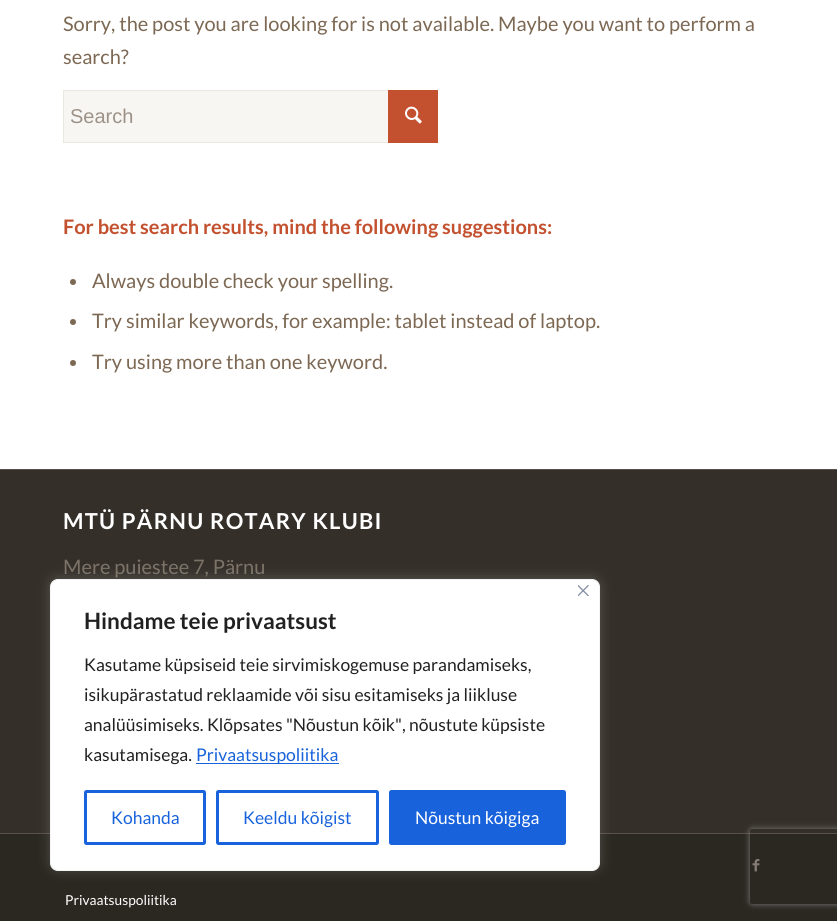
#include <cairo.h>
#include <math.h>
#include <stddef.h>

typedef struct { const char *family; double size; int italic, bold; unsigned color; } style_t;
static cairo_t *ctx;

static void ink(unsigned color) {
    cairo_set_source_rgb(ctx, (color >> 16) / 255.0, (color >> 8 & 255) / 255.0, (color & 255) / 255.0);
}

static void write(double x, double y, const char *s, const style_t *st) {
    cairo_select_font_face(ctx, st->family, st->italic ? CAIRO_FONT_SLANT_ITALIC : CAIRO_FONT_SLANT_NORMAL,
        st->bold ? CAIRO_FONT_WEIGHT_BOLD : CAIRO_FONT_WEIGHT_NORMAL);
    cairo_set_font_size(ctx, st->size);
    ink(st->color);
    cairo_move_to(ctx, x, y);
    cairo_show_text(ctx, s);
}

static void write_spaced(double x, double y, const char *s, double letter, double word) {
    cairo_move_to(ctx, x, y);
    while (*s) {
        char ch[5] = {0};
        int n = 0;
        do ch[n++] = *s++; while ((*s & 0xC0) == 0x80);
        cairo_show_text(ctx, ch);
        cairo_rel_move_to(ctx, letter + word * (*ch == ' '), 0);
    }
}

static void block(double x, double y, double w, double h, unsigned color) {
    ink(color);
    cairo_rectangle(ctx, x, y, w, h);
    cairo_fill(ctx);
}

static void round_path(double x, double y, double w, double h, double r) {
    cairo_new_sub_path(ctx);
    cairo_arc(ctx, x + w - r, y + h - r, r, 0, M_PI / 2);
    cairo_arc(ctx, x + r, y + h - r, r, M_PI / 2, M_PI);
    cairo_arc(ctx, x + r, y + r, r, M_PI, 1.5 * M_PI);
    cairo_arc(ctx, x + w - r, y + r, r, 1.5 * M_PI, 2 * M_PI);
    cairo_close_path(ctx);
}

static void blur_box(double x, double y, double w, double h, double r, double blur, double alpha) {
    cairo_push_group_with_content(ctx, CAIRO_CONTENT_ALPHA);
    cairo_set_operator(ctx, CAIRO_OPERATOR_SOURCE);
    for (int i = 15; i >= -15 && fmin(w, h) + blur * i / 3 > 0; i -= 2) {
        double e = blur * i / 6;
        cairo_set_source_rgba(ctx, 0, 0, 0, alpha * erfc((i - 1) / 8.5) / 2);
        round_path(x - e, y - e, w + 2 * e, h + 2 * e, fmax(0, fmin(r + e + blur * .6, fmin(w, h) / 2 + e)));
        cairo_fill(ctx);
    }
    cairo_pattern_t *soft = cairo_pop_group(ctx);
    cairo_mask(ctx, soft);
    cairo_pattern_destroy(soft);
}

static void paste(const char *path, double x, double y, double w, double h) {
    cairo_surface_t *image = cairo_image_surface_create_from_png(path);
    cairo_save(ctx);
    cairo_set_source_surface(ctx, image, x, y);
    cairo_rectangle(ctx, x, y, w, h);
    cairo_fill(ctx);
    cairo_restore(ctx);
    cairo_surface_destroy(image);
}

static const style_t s1 = {"Lato", 20, 0, 0, 0x7c6853};
static const style_t s2 = {"Liberation Sans", 20, 0, 0, 0x9c9288};
static const style_t s3 = {"Lato", 20, 0, 1, 0xc3512f};
static const style_t s4 = {"Lato", 20, 0, 0, 0x7b7368};
static const style_t s5 = {"Lato", 13.75, 0, 0, 0xffffff};
static const style_t s6 = {"Lato", 22.5, 0, 1, 0x212121};
static const style_t s7 = {"Lato", 17.5, 0, 0, 0x212121};
static const style_t s8 = {"Lato", 17.5, 0, 0, 0x1863dc};
static const style_t s9 = {"Lato", 17.5, 0, 0, 0xffffff};

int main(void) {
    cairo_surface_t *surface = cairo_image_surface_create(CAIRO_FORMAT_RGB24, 837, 921);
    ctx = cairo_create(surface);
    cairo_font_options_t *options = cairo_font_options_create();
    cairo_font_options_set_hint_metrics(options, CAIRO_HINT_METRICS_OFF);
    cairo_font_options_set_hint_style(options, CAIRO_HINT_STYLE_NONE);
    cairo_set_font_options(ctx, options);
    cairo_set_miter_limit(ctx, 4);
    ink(0xffffff);
    cairo_paint(ctx);
    write(63, 31, "Sorry, the post you are looking for is not available. Maybe you want to perform a", &s1);
    write(63, 64, "search?", &s1);
    block(64, 91, 324, 51, 0xf8f6f2);
    cairo_rectangle(ctx, 63.5, 90.5, 374, 52);
    ink(0xebe8e2);
    cairo_set_line_width(ctx, 1);
    cairo_stroke(ctx);
    write(70, 123, "Search", &s2);
    block(388, 90, 50, 53, 0xc3512f);
    paste("pic1.png", 405, 106, 17, 18);
    write(63, 234, "For best search results, mind the following suggestions:", &s3);
    ink(0x7c6853);
    cairo_new_path(ctx);
    cairo_arc(ctx, 73, 282, 3, 0, 2 * M_PI);
    cairo_fill(ctx);
    write(92, 288, "Always double check your spelling.", &s1);
    cairo_new_path(ctx);
    cairo_arc(ctx, 73, 322, 3, 0, 2 * M_PI);
    cairo_fill(ctx);
    write(92, 328, "Try similar keywords, for example: tablet instead of laptop.", &s1);
    cairo_new_path(ctx);
    cairo_arc(ctx, 73, 363, 3, 0, 2 * M_PI);
    cairo_fill(ctx);
    write(92, 369, "Try using more than one keyword.", &s1);
    block(0, 470, 837, 363, 0x342f29);
    block(0, 469, 837, 1, 0x575149);
    cairo_select_font_face(ctx, "Lato", CAIRO_FONT_SLANT_NORMAL, CAIRO_FONT_WEIGHT_BOLD);
    cairo_set_font_size(ctx, 22);
    ink(0xffffff);
    write_spaced(63, 529, "MTÜ PÄRNU ROTARY KLUBI", 1.25, 0);
    write(63, 574, "Mere puiestee 7, Pärnu", &s4);
    block(0, 834, 837, 87, 0x2b2822);
    block(0, 833, 837, 1, 0x575149);
    paste("pic2.png", 752, 859, 8, 13);
    write(65, 905, "Privaatsuspoliitika", &s5);
    ink(0xacabab);
    blur_box(50, 578, 550, 292, 8, 6, 0.3);
    ink(0xffffff);
    round_path(50.5, 579.5, 549, 291, 7.5);
    cairo_fill_preserve(ctx);
    ink(0xf4f4f4);
    cairo_stroke(ctx);
    paste("pic3.png", 578, 585, 11, 11);
    write(84, 629, "Hindame teie privaatsust", &s6);
    write(84, 671, "Kasutame küpsiseid teie sirvimiskogemuse parandamiseks,", &s7);
    write(84, 701, "isikupärastatud reklaamide või sisu esitamiseks ja liikluse", &s7);
    write(84, 731, "analüüsimiseks. Klõpsates \"Nõustun kõik\", nõustute küpsiste", &s7);
    write(84, 761, "kasutamisega.", &s7);
    block(196, 763, 143, 1, 0x1863dc);
    write(196, 761, "Privaatsuspoliitika", &s8);
    round_path(85.5, 791.5, 119, 52, 1);
    cairo_set_line_width(ctx, 3);
    cairo_stroke(ctx);
    write(111, 824, "Kohanda", &s8);
    round_path(217.5, 791.5, 160, 52, 1);
    cairo_stroke(ctx);
    write(243, 824, "Keeldu kõigist", &s8);
    round_path(390.5, 791.5, 174, 52, 1);
    cairo_fill_preserve(ctx);
    cairo_stroke(ctx);
    write(415, 824, "Nõustun kõigiga", &s9);
    cairo_save(ctx);
    cairo_set_fill_rule(ctx, CAIRO_FILL_RULE_EVEN_ODD);
    cairo_new_path(ctx);
    cairo_move_to(ctx, 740, 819);
    cairo_line_to(ctx, 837, 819);
    cairo_line_to(ctx, 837, 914);
    cairo_line_to(ctx, 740, 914);
    cairo_close_path(ctx);
    cairo_move_to(ctx, 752.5, 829);
    cairo_line_to(ctx, 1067.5, 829);
    cairo_curve_to(ctx, 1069, 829, 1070, 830, 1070, 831.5);
    cairo_line_to(ctx, 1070, 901.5);
    cairo_curve_to(ctx, 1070, 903, 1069, 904, 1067.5, 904);
    cairo_line_to(ctx, 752.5, 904);
    cairo_curve_to(ctx, 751, 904, 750, 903, 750, 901.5);
    cairo_line_to(ctx, 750, 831.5);
    cairo_curve_to(ctx, 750, 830, 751, 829, 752.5, 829);
    cairo_close_path(ctx);
    cairo_clip(ctx);
    ink(0x808080);
    blur_box(750, 829, 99, 75, 2.5, 3, 1);
    cairo_restore(ctx);
    cairo_surface_write_to_png(surface, "screenshot.png");
    cairo_font_options_destroy(options);
    cairo_destroy(ctx);
    cairo_surface_destroy(surface);
    return 0;
}
